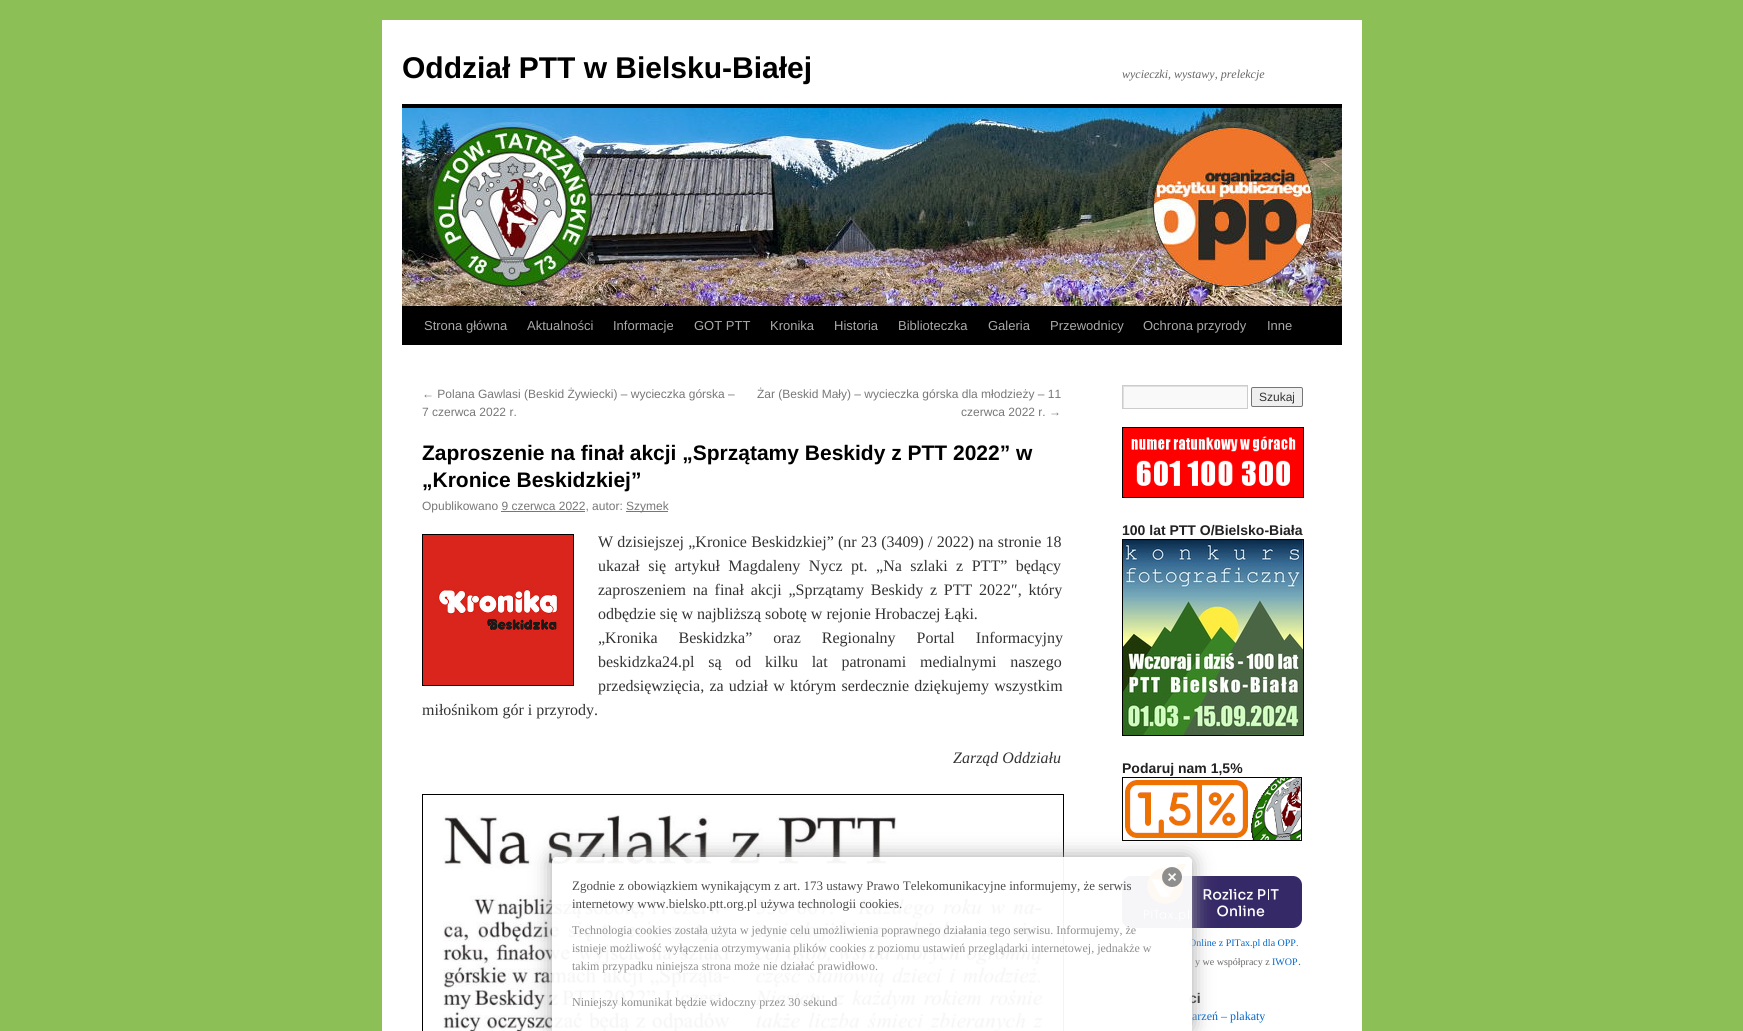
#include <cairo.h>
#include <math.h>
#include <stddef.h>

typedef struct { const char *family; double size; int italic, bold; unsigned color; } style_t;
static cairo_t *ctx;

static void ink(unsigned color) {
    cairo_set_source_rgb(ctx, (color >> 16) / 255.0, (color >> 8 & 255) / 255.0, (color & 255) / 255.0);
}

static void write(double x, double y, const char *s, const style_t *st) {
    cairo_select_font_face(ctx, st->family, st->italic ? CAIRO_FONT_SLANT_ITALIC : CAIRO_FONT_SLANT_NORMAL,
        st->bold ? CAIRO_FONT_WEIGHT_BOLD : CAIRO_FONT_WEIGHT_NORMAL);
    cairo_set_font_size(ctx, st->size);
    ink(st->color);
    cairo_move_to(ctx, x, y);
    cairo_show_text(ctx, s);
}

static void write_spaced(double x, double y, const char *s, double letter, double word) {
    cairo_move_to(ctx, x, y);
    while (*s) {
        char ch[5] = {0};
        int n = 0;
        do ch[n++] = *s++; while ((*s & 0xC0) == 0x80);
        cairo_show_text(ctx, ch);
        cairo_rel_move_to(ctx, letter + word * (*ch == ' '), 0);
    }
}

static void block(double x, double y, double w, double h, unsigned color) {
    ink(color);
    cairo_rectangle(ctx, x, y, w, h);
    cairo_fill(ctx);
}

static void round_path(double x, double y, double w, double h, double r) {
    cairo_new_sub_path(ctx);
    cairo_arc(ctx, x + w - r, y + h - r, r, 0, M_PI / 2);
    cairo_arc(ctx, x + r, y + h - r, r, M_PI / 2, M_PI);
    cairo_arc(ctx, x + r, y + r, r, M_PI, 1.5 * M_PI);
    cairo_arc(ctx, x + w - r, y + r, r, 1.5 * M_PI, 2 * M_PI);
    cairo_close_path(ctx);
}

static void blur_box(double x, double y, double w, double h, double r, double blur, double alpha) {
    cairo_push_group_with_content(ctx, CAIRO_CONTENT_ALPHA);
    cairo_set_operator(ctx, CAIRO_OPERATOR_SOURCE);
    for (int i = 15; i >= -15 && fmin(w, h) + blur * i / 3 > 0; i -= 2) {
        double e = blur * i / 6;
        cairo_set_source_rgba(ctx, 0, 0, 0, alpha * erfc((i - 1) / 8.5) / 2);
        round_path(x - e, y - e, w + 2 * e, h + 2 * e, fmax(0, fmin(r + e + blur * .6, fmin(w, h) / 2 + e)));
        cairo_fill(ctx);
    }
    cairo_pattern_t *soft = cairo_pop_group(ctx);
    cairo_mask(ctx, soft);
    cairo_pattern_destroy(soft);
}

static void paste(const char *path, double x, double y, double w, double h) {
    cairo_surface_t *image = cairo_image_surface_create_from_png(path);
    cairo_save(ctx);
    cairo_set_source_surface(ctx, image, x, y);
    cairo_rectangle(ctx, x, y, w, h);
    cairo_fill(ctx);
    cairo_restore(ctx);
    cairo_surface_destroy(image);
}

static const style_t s1 = {"Liberation Sans", 30, 0, 1, 0x000000};
static const style_t s2 = {"Liberation Serif", 12, 1, 0, 0x666666};
static const style_t s3 = {"Liberation Sans", 13, 0, 0, 0xaaaaaa};
static const style_t s4 = {"Liberation Sans", 12, 0, 0, 0x777777};
static const style_t s5 = {"Liberation Sans", 21, 0, 1, 0x000000};
static const style_t s6 = {"Liberation Serif", 16, 0, 0, 0x333333};
static const style_t s7 = {"Liberation Serif", 16, 1, 0, 0x333333};
static const style_t s8 = {"Liberation Sans", 12, 0, 0, 0x333333};
static const style_t s9 = {"Liberation Sans", 14, 0, 1, 0x222222};
static const style_t s10 = {"Liberation Serif", 10, 0, 0, 0x0066cc};
static const style_t s11 = {"Liberation Serif", 10, 0, 0, 0x666666};
static const style_t s12 = {"Liberation Serif", 12, 0, 0, 0x666666};
static const style_t s13 = {"Liberation Serif", 12, 0, 0, 0x0066cc};
static const style_t s14 = {"Liberation Serif", 13, 0, 0, 0x4d4d4d};
static const style_t s15 = {"Liberation Serif", 12, 0, 0, 0x8e8e8e};

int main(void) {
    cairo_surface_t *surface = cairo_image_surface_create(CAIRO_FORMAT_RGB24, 1743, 1031);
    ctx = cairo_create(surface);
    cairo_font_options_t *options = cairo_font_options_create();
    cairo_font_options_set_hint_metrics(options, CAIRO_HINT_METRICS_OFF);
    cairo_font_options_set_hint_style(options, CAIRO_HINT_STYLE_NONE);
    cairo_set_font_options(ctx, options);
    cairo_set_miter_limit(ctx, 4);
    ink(0x8cbf55);
    cairo_paint(ctx);
    block(382, 20, 980, 1011, 0xffffff);
    write(402, 78, "Oddział PTT w Bielsku-Białej", &s1);
    write(1122, 78, "wycieczki, wystawy, prelekcje", &s2);
    block(402, 104, 940, 4, 0x000000);
    block(402, 306, 940, 39, 0x000000);
    paste("pic1.png", 402, 108, 940, 198);
    write(424, 330, "Strona główna", &s3);
    write(527, 330, "Aktualności", &s3);
    write(613, 330, "Informacje", &s3);
    write(694, 330, "GOT PTT", &s3);
    write(770, 330, "Kronika", &s3);
    write(834, 330, "Historia", &s3);
    write(898, 330, "Biblioteczka", &s3);
    write(988, 330, "Galeria", &s3);
    write(1050, 330, "Przewodnicy", &s3);
    write(1143, 330, "Ochrona przyrody", &s3);
    write(1267, 330, "Inne", &s3);
    write(422, 398, "← Polana Gawlasi (Beskid Żywiecki) – wycieczka górska –", &s4);
    write(422, 416, "7 czerwca 2022 r.", &s4);
    write(757, 398, "Żar (Beskid Mały) – wycieczka górska dla młodzieży – 11", &s4);
    write(961, 416, "czerwca 2022 r. →", &s4);
    write(422, 460, "Zaproszenie na finał akcji „Sprzątamy Beskidy z PTT 2022” w", &s5);
    write(422, 487, "„Kronice Beskidzkiej”", &s5);
    write(422, 510, "Opublikowano 9 czerwca 2022, autor:", &s4);
    block(626, 511, 42, 1, 0x777777);
    write(626, 510, "Szymek", &s4);
    block(501, 511, 84, 1, 0x777777);
    cairo_rectangle(ctx, 422.5, 534.5, 151, 151);
    ink(0x000000);
    cairo_set_line_width(ctx, 1);
    cairo_stroke(ctx);
    paste("pic2.png", 423, 535, 150, 150);
    cairo_select_font_face(ctx, "Liberation Serif", CAIRO_FONT_SLANT_NORMAL, CAIRO_FONT_WEIGHT_NORMAL);
    cairo_set_font_size(ctx, 16);
    ink(0x333333);
    write_spaced(598, 547, "W dzisiejszej „Kronice Beskidzkiej” (nr 23 (3409) / 2022) na stronie 18", 0, 0.25);
    write_spaced(598, 571, "ukazał się artykuł Magdaleny Nycz pt. „Na szlaki z PTT” będący", 0, 4.5);
    write_spaced(598, 595, "zaproszeniem na finał akcji „Sprzątamy Beskidy z PTT 2022″, który", 0, 2.75);
    write(598, 619, "odbędzie się w najbliższą sobotę w rejonie Hrobaczej Łąki.", &s6);
    write_spaced(598, 643, "„Kronika Beskidzka” oraz Regionalny Portal Informacyjny", 0, 17);
    write_spaced(598, 667, "beskidzka24.pl są od kilku lat patronami medialnymi naszego", 0, 9.75);
    write_spaced(598, 691, "przedsięwzięcia, za udział w którym serdecznie dziękujemy wszystkim", 0, 1.25);
    write(422, 715, "miłośnikom gór i przyrody.", &s6);
    write(953, 763, "Zarząd Oddziału", &s7);
    cairo_rectangle(ctx, 422.5, 794.5, 641, 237);
    ink(0x000000);
    cairo_stroke(ctx);
    paste("pic3.png", 443, 815, 600, 216);
    block(1124, 387, 123, 21, 0xf9f9f9);
    cairo_save(ctx);
    cairo_rectangle(ctx, 1123, 386, 124, 22);
    cairo_clip(ctx);
    ink(0xe0e0e0);
    cairo_set_fill_rule(ctx, CAIRO_FILL_RULE_EVEN_ODD);
    cairo_new_path(ctx);
    cairo_move_to(ctx, 1024, 287);
    cairo_line_to(ctx, 1346, 287);
    cairo_line_to(ctx, 1346, 507);
    cairo_line_to(ctx, 1024, 507);
    cairo_close_path(ctx);
    cairo_move_to(ctx, 1124, 387);
    cairo_line_to(ctx, 1248, 387);
    cairo_line_to(ctx, 1248, 409);
    cairo_line_to(ctx, 1124, 409);
    cairo_close_path(ctx);
    cairo_fill(ctx);
    cairo_restore(ctx);
    cairo_rectangle(ctx, 1122.5, 385.5, 125, 23);
    ink(0xcccccc);
    cairo_stroke(ctx);
    ink(0xefefef);
    round_path(1251.5, 387.5, 51, 19, 1.5);
    cairo_fill_preserve(ctx);
    ink(0x767676);
    cairo_stroke(ctx);
    write(1259, 401, "Szukaj", &s8);
    cairo_rectangle(ctx, 1122.5, 427.5, 181, 70);
    ink(0x000000);
    cairo_stroke(ctx);
    paste("pic4.png", 1123, 428, 180, 69);
    write(1122, 535, "100 lat PTT O/Bielsko-Biała", &s9);
    cairo_rectangle(ctx, 1122.5, 539.5, 181, 196);
    ink(0x000000);
    cairo_stroke(ctx);
    paste("pic5.png", 1123, 540, 180, 195);
    write(1122, 773, "Podaruj nam 1,5%", &s9);
    paste("pic6.png", 1122, 777, 180, 64);
    paste("pic7.png", 1122, 864, 180, 64);
    write(1189, 946, "Online z PITax.pl dla OPP", &s10);
    write(1296, 946, ".", &s11);
    write(1195, 965, "y we współpracy z", &s11);
    write(1272, 965, "IWOP", &s10);
    write(1298, 965, ".", &s12);
    write(1189, 1003, "ci", &s9);
    write(1192, 1020, "arzeń – plakaty", &s13);
    cairo_save(ctx);
    cairo_set_fill_rule(ctx, CAIRO_FILL_RULE_EVEN_ODD);
    cairo_new_path(ctx);
    cairo_move_to(ctx, 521, 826);
    cairo_line_to(ctx, 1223, 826);
    cairo_line_to(ctx, 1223, 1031);
    cairo_line_to(ctx, 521, 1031);
    cairo_close_path(ctx);
    cairo_move_to(ctx, 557, 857);
    cairo_line_to(ctx, 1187, 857);
    cairo_curve_to(ctx, 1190, 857, 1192, 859, 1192, 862);
    cairo_line_to(ctx, 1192, 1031);
    cairo_line_to(ctx, 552, 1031);
    cairo_line_to(ctx, 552, 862);
    cairo_curve_to(ctx, 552, 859, 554, 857, 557, 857);
    cairo_close_path(ctx);
    cairo_clip(ctx);
    ink(0xa1a1a1);
    blur_box(552, 857, 640, 174, 5, 10, 0.95);
    cairo_restore(ctx);
    cairo_set_source_rgba(ctx, 1, 1, 1, 0.95);
    cairo_new_path(ctx);
    cairo_move_to(ctx, 557, 857);
    cairo_line_to(ctx, 1187, 857);
    cairo_curve_to(ctx, 1190, 857, 1192, 859, 1192, 862);
    cairo_line_to(ctx, 1192, 1031);
    cairo_line_to(ctx, 552, 1031);
    cairo_line_to(ctx, 552, 862);
    cairo_curve_to(ctx, 552, 859, 554, 857, 557, 857);
    cairo_close_path(ctx);
    cairo_fill(ctx);
    paste("pic8.png", 1162, 867, 20, 20);
    write(572, 890, "Zgodnie z obowiązkiem wynikającym z art. 173 ustawy Prawo Telekomunikacyjne informujemy, że serwis", &s14);
    write(572, 908, "internetowy www.bielsko.ptt.org.pl używa technologii cookies.", &s14);
    write(572, 934, "Technologia cookies została użyta w jedynie celu umożliwienia poprawnego działania tego serwisu. Informujemy, że", &s15);
    write(572, 952, "istnieje możliwość wyłączenia otrzymywania plików cookies z poziomu ustawień przeglądarki internetowej, jednakże w", &s15);
    write(572, 970, "takim przypadku niniejsza strona może nie działać prawidłowo.", &s15);
    write(572, 1006, "Niniejszy komunikat będzie widoczny przez 30 sekund", &s15);
    cairo_surface_write_to_png(surface, "screenshot.png");
    cairo_font_options_destroy(options);
    cairo_destroy(ctx);
    cairo_surface_destroy(surface);
    return 0;
}
